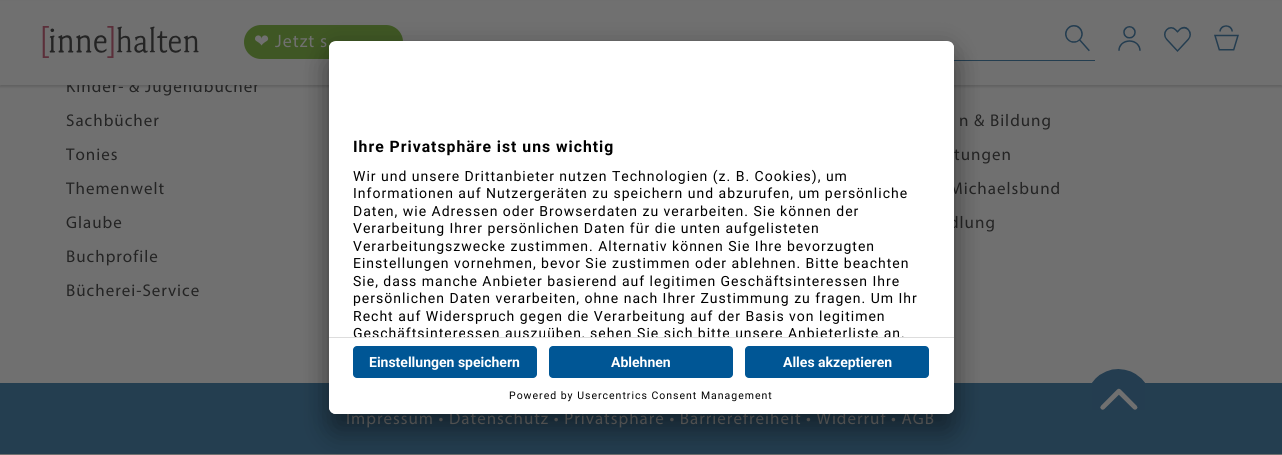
#include <cairo.h>
#include <math.h>
#include <stddef.h>

typedef struct { const char *family; double size; int italic, bold; unsigned color; } style_t;
static cairo_t *ctx;

static void ink(unsigned color) {
    cairo_set_source_rgb(ctx, (color >> 16) / 255.0, (color >> 8 & 255) / 255.0, (color & 255) / 255.0);
}

static void write(double x, double y, const char *s, const style_t *st) {
    cairo_select_font_face(ctx, st->family, st->italic ? CAIRO_FONT_SLANT_ITALIC : CAIRO_FONT_SLANT_NORMAL,
        st->bold ? CAIRO_FONT_WEIGHT_BOLD : CAIRO_FONT_WEIGHT_NORMAL);
    cairo_set_font_size(ctx, st->size);
    ink(st->color);
    cairo_move_to(ctx, x, y);
    cairo_show_text(ctx, s);
}

static void write_spaced(double x, double y, const char *s, double letter, double word) {
    cairo_move_to(ctx, x, y);
    while (*s) {
        char ch[5] = {0};
        int n = 0;
        do ch[n++] = *s++; while ((*s & 0xC0) == 0x80);
        cairo_show_text(ctx, ch);
        cairo_rel_move_to(ctx, letter + word * (*ch == ' '), 0);
    }
}

static void block(double x, double y, double w, double h, unsigned color) {
    ink(color);
    cairo_rectangle(ctx, x, y, w, h);
    cairo_fill(ctx);
}

static void round_path(double x, double y, double w, double h, double r) {
    cairo_new_sub_path(ctx);
    cairo_arc(ctx, x + w - r, y + h - r, r, 0, M_PI / 2);
    cairo_arc(ctx, x + r, y + h - r, r, M_PI / 2, M_PI);
    cairo_arc(ctx, x + r, y + r, r, M_PI, 1.5 * M_PI);
    cairo_arc(ctx, x + w - r, y + r, r, 1.5 * M_PI, 2 * M_PI);
    cairo_close_path(ctx);
}

static void blur_box(double x, double y, double w, double h, double r, double blur, double alpha) {
    cairo_push_group_with_content(ctx, CAIRO_CONTENT_ALPHA);
    cairo_set_operator(ctx, CAIRO_OPERATOR_SOURCE);
    for (int i = 15; i >= -15 && fmin(w, h) + blur * i / 3 > 0; i -= 2) {
        double e = blur * i / 6;
        cairo_set_source_rgba(ctx, 0, 0, 0, alpha * erfc((i - 1) / 8.5) / 2);
        round_path(x - e, y - e, w + 2 * e, h + 2 * e, fmax(0, fmin(r + e + blur * .6, fmin(w, h) / 2 + e)));
        cairo_fill(ctx);
    }
    cairo_pattern_t *soft = cairo_pop_group(ctx);
    cairo_mask(ctx, soft);
    cairo_pattern_destroy(soft);
}

static void paste(const char *path, double x, double y, double w, double h) {
    cairo_surface_t *image = cairo_image_surface_create_from_png(path);
    cairo_save(ctx);
    cairo_set_source_surface(ctx, image, x, y);
    cairo_rectangle(ctx, x, y, w, h);
    cairo_fill(ctx);
    cairo_restore(ctx);
    cairo_surface_destroy(image);
}

static const style_t s1 = {"Roboto", 14, 0, 1, 0xffffff};

int main(void) {
    cairo_surface_t *surface = cairo_image_surface_create(CAIRO_FORMAT_RGB24, 1282, 455);
    ctx = cairo_create(surface);
    cairo_font_options_t *options = cairo_font_options_create();
    cairo_font_options_set_hint_metrics(options, CAIRO_HINT_METRICS_OFF);
    cairo_font_options_set_hint_style(options, CAIRO_HINT_STYLE_NONE);
    cairo_set_font_options(ctx, options);
    cairo_set_miter_limit(ctx, 4);
    ink(0x707070);
    cairo_paint(ctx);
    ink(0x242424);
    blur_box(0, 2, 1282, 85, 0, 1, 0.2);
    cairo_select_font_face(ctx, "Myriad", CAIRO_FONT_SLANT_NORMAL, CAIRO_FONT_WEIGHT_NORMAL);
    cairo_set_font_size(ctx, 17);
    ink(0x242424);
    write_spaced(66, 92, "Kinder- & Jugendbücher", 1, 0);
    block(0, 1, 1282, 84, 0x707070);
    paste("pic1.png", 42, 26, 157, 32);
    ink(0x3f5724);
    round_path(244, 25, 159, 34, 17);
    cairo_fill(ctx);
    cairo_select_font_face(ctx, "DejaVu Sans", CAIRO_FONT_SLANT_NORMAL, CAIRO_FONT_WEIGHT_NORMAL);
    cairo_set_font_size(ctx, 18);
    ink(0x707070);
    write_spaced(254, 47, "❤", 1, 0);
    cairo_select_font_face(ctx, "Myriad", CAIRO_FONT_SLANT_NORMAL, CAIRO_FONT_WEIGHT_NORMAL);
    write_spaced(275, 47, "Jetzt s", 1, 0);
    paste("pic2.png", 1065, 25, 25, 27);
    block(954, 60, 141, 1, 0x243e50);
    paste("pic3.png", 1118, 26, 23, 25);
    paste("pic4.png", 1164, 26, 27, 26);
    paste("pic5.png", 1214, 25, 25, 26);
    cairo_set_font_size(ctx, 17);
    ink(0x242424);
    write_spaced(66, 126, "Sachbücher", 1, 0);
    write_spaced(66, 160, "Tonies", 1, 0);
    write_spaced(66, 194, "Themenwelt", 1, 0);
    write_spaced(66, 228, "Glaube", 1, 0);
    write_spaced(66, 262, "Buchprofile", 1, 0);
    write_spaced(66, 296, "Bücherei-Service", 1, 0);
    write_spaced(959, 126, "n & Bildung", 1, 0);
    write_spaced(954, 160, "tungen", 1, 0);
    write_spaced(949, 194, "Michaelsbund", 1, 0);
    write_spaced(949, 228, "dlung", 1, 0);
    block(0, 383, 1282, 71, 0x243e50);
    ink(0x707070);
    write_spaced(346, 424, "Impressum • Datenschutz • Privatsphäre • Barrierefreiheit • Widerruf • AGB", 1, 0);
    paste("pic6.png", 1092, 369, 53, 41);
    ink(0x000000);
    blur_box(329, 61, 625, 373, 7, 14, 0.3);
    blur_box(329, 46, 625, 373, 7, 13, 0.22);
    ink(0xffffff);
    round_path(329, 41, 625, 373, 7);
    cairo_fill(ctx);
    cairo_save(ctx);
    round_path(329, 41, 625, 373, 7);
    cairo_clip(ctx);
    cairo_new_path(ctx);
    cairo_move_to(ctx, 336, 41);
    cairo_line_to(ctx, 947, 41);
    cairo_curve_to(ctx, 951, 41, 954, 44, 954, 48);
    cairo_line_to(ctx, 954, 337);
    cairo_line_to(ctx, 329, 337);
    cairo_line_to(ctx, 329, 48);
    cairo_curve_to(ctx, 329, 44, 332, 41, 336, 41);
    cairo_close_path(ctx);
    cairo_clip(ctx);
    block(329, 42, 625, 295, 0xffffff);
    cairo_restore(ctx);
    cairo_select_font_face(ctx, "Roboto", CAIRO_FONT_SLANT_NORMAL, CAIRO_FONT_WEIGHT_BOLD);
    cairo_set_font_size(ctx, 15.75);
    ink(0x000000);
    write_spaced(353, 152, "Ihre Privatsphäre ist uns wichtig", 1, 0);
    cairo_select_font_face(ctx, "Roboto", CAIRO_FONT_SLANT_NORMAL, CAIRO_FONT_WEIGHT_NORMAL);
    cairo_set_font_size(ctx, 14);
    write_spaced(353, 181, "Wir und unsere Drittanbieter nutzen Technologien (z. B. Cookies), um", 1, 0);
    write_spaced(353, 198, "Informationen auf Nutzergeräten zu speichern und abzurufen, um persönliche", 1, 0);
    write_spaced(353, 216, "Daten, wie Adressen oder Browserdaten zu verarbeiten. Sie können der", 1, 0);
    write_spaced(353, 233, "Verarbeitung Ihrer persönlichen Daten für die unten aufgelisteten", 1, 0);
    write_spaced(353, 251, "Verarbeitungszwecke zustimmen. Alternativ können Sie Ihre bevorzugten", 1, 0);
    write_spaced(353, 268, "Einstellungen vornehmen, bevor Sie zustimmen oder ablehnen. Bitte beachten", 1, 0);
    write_spaced(353, 286, "Sie, dass manche Anbieter basierend auf legitimen Geschäftsinteressen Ihre", 1, 0);
    write_spaced(353, 303, "persönlichen Daten verarbeiten, ohne nach Ihrer Zustimmung zu fragen. Um Ihr", 1, 0);
    write_spaced(353, 321, "Recht auf Widerspruch gegen die Verarbeitung auf der Basis von legitimen", 1, 0);
    cairo_save(ctx);
    cairo_new_path(ctx);
    cairo_move_to(ctx, 336, 41);
    cairo_line_to(ctx, 947, 41);
    cairo_curve_to(ctx, 951, 41, 954, 44, 954, 48);
    cairo_line_to(ctx, 954, 337);
    cairo_line_to(ctx, 329, 337);
    cairo_line_to(ctx, 329, 48);
    cairo_curve_to(ctx, 329, 44, 332, 41, 336, 41);
    cairo_close_path(ctx);
    cairo_clip(ctx);
    write_spaced(353, 338, "Geschäftsinteressen auszuüben, sehen Sie sich bitte unsere Anbieterliste an.", 1, 0);
    cairo_restore(ctx);
    ink(0xffffff);
    cairo_new_path(ctx);
    cairo_move_to(ctx, 329, 337);
    cairo_line_to(ctx, 954, 337);
    cairo_line_to(ctx, 954, 407);
    cairo_curve_to(ctx, 954, 411, 951, 414, 947, 414);
    cairo_line_to(ctx, 336, 414);
    cairo_curve_to(ctx, 332, 414, 329, 411, 329, 407);
    cairo_close_path(ctx);
    cairo_fill(ctx);
    block(329, 337, 625, 1, 0xdddddd);
    ink(0x005695);
    round_path(353, 346, 184, 32, 4);
    cairo_fill(ctx);
    write(369, 367, "Einstellungen speichern", &s1);
    ink(0x005695);
    round_path(549, 346, 184, 32, 4);
    cairo_fill(ctx);
    write(611, 367, "Ablehnen", &s1);
    ink(0x005695);
    round_path(745, 346, 184, 32, 4);
    cairo_fill(ctx);
    write(783, 367, "Alles akzeptieren", &s1);
    cairo_select_font_face(ctx, "Roboto", CAIRO_FONT_SLANT_NORMAL, CAIRO_FONT_WEIGHT_NORMAL);
    cairo_set_font_size(ctx, 10.5);
    ink(0x000000);
    write_spaced(509, 399, "Powered by Usercentrics Consent Management", 1, 0);
    cairo_surface_write_to_png(surface, "screenshot.png");
    cairo_font_options_destroy(options);
    cairo_destroy(ctx);
    cairo_surface_destroy(surface);
    return 0;
}
